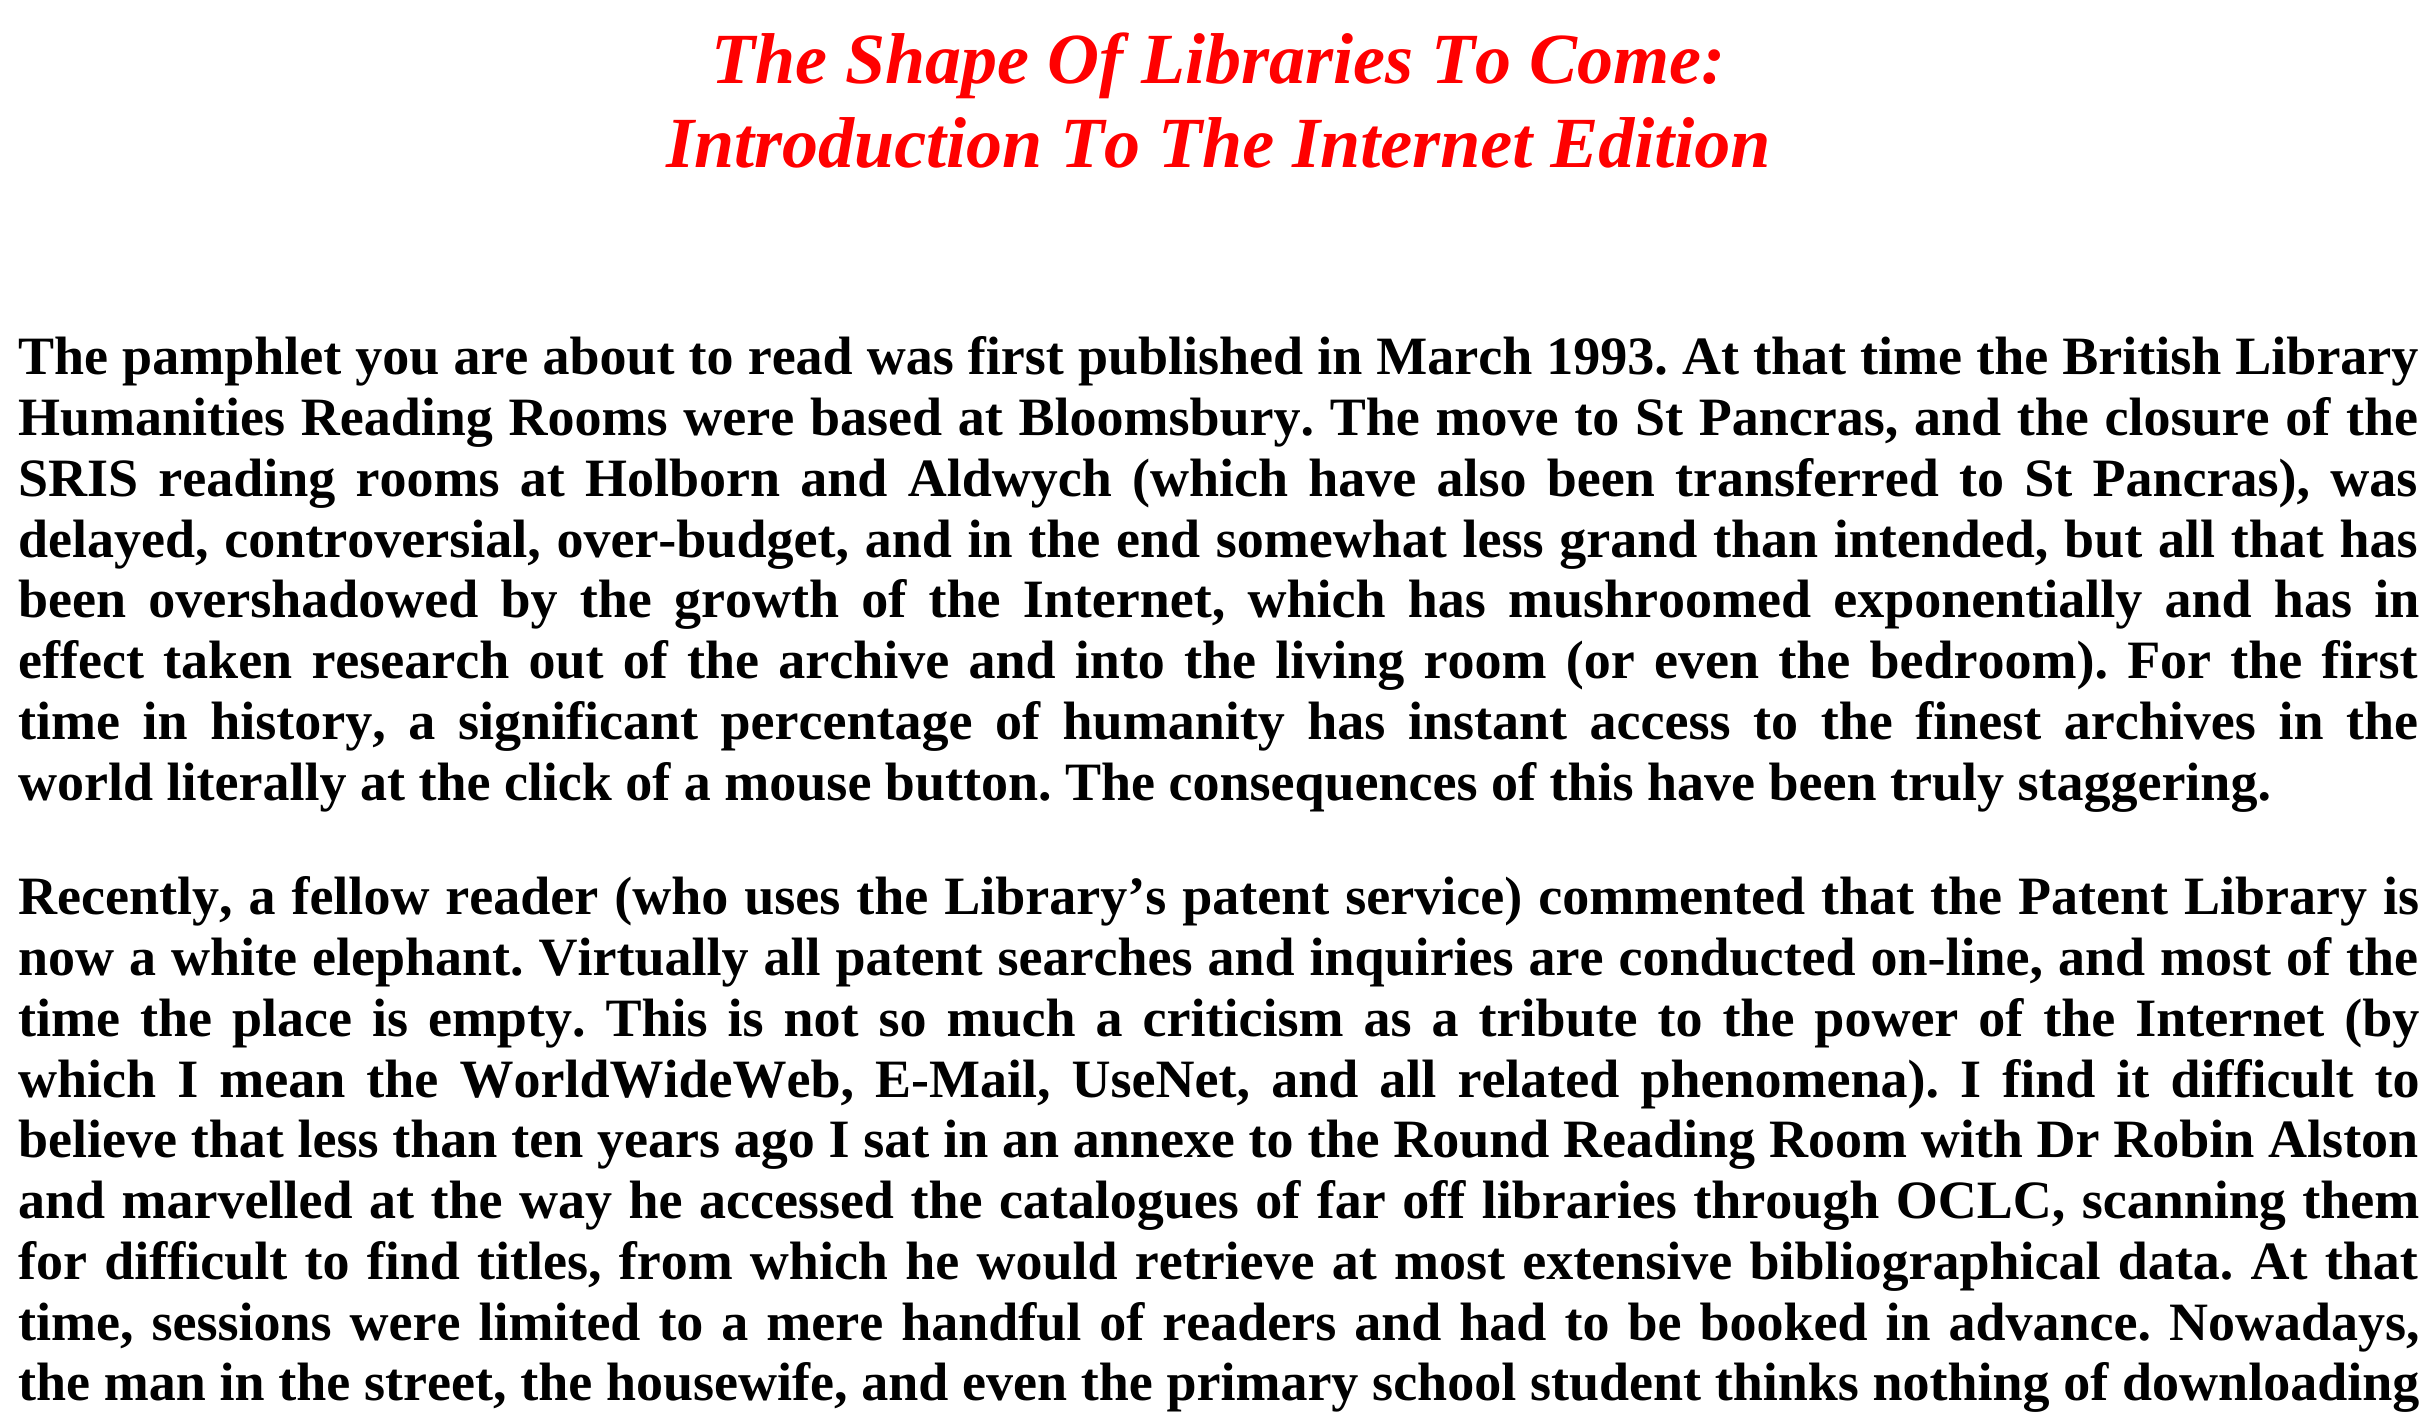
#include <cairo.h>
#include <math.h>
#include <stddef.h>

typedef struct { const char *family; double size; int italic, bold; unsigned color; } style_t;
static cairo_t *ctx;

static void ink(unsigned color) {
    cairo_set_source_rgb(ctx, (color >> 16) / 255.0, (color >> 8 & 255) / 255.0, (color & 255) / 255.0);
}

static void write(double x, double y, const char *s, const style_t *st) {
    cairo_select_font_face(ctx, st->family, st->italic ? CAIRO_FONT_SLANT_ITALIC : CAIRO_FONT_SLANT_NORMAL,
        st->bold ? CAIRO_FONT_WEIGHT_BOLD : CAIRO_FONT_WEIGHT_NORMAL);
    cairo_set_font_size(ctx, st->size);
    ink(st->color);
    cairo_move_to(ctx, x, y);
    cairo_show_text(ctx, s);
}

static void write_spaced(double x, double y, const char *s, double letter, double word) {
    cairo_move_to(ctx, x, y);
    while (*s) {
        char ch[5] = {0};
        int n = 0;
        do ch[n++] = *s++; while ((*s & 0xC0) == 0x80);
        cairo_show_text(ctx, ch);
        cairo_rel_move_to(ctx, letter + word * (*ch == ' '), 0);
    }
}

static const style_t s1 = {"Liberation Serif", 72, 1, 1, 0xff0000};
static const style_t s2 = {"Liberation Serif", 54, 0, 1, 0x000000};

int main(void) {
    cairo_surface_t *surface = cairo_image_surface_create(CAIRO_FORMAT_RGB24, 2436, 1422);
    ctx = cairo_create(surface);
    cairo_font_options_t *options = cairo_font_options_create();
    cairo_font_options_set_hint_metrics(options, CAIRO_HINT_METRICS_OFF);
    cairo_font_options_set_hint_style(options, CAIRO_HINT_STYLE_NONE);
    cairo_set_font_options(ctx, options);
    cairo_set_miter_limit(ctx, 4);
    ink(0xffffff);
    cairo_paint(ctx);
    write(711, 83, "The Shape Of Libraries To Come:", &s1);
    write(666, 167, "Introduction To The Internet Edition", &s1);
    cairo_select_font_face(ctx, "Liberation Serif", CAIRO_FONT_SLANT_NORMAL, CAIRO_FONT_WEIGHT_BOLD);
    cairo_set_font_size(ctx, 54);
    ink(0x000000);
    write_spaced(18, 374, "The pamphlet you are about to read was first published in March 1993. At that time the British Library", 0, 0.6);
    write_spaced(18, 435, "Humanities Reading Rooms were based at Bloomsbury. The move to St Pancras, and the closure of the", 0, 2.25);
    write_spaced(18, 496, "SRIS reading rooms at Holborn and Aldwych (which have also been transferred to St Pancras), was", 0, 6.75);
    write_spaced(18, 557, "delayed, controversial, over-budget, and in the end somewhat less grand than intended, but all that has", 0, 2.25);
    write_spaced(18, 617, "been overshadowed by the growth of the Internet, which has mushroomed exponentially and has in", 0, 8.75);
    write_spaced(18, 678, "effect taken research out of the archive and into the living room (or even the bedroom). For the first", 0, 5.75);
    write_spaced(18, 739, "time in history, a significant percentage of humanity has instant access to the finest archives in the", 0, 9.1);
    write(18, 800, "world literally at the click of a mouse button. The consequences of this have been truly staggering.", &s2);
    write_spaced(18, 914, "Recently, a fellow reader (who uses the Library’s patent service) commented that the Patent Library is", 0, 2.5);
    write_spaced(18, 975, "now a white elephant. Virtually all patent searches and inquiries are conducted on-line, and most of the", 0, 1.5);
    write_spaced(18, 1036, "time the place is empty. This is not so much a criticism as a tribute to the power of the Internet (by", 0, 6.5);
    write_spaced(18, 1097, "which I mean the WorldWideWeb, E-Mail, UseNet, and all related phenomena). I find it difficult to", 0, 7.6);
    write_spaced(18, 1157, "believe that less than ten years ago I sat in an annexe to the Round Reading Room with Dr Robin Alston", 0, 0.3);
    write_spaced(18, 1218, "and marvelled at the way he accessed the catalogues of far off libraries through OCLC, scanning them", 0, 3);
    write_spaced(18, 1279, "for difficult to find titles, from which he would retrieve at most extensive bibliographical data. At that", 0, 3.75);
    write_spaced(18, 1340, "time, sessions were limited to a mere handful of readers and had to be booked in advance. Nowadays,", 0, 4.5);
    write_spaced(18, 1400, "the man in the street, the housewife, and even the primary school student thinks nothing of downloading", 0, 0.25);
    cairo_surface_write_to_png(surface, "screenshot.png");
    cairo_font_options_destroy(options);
    cairo_destroy(ctx);
    cairo_surface_destroy(surface);
    return 0;
}
